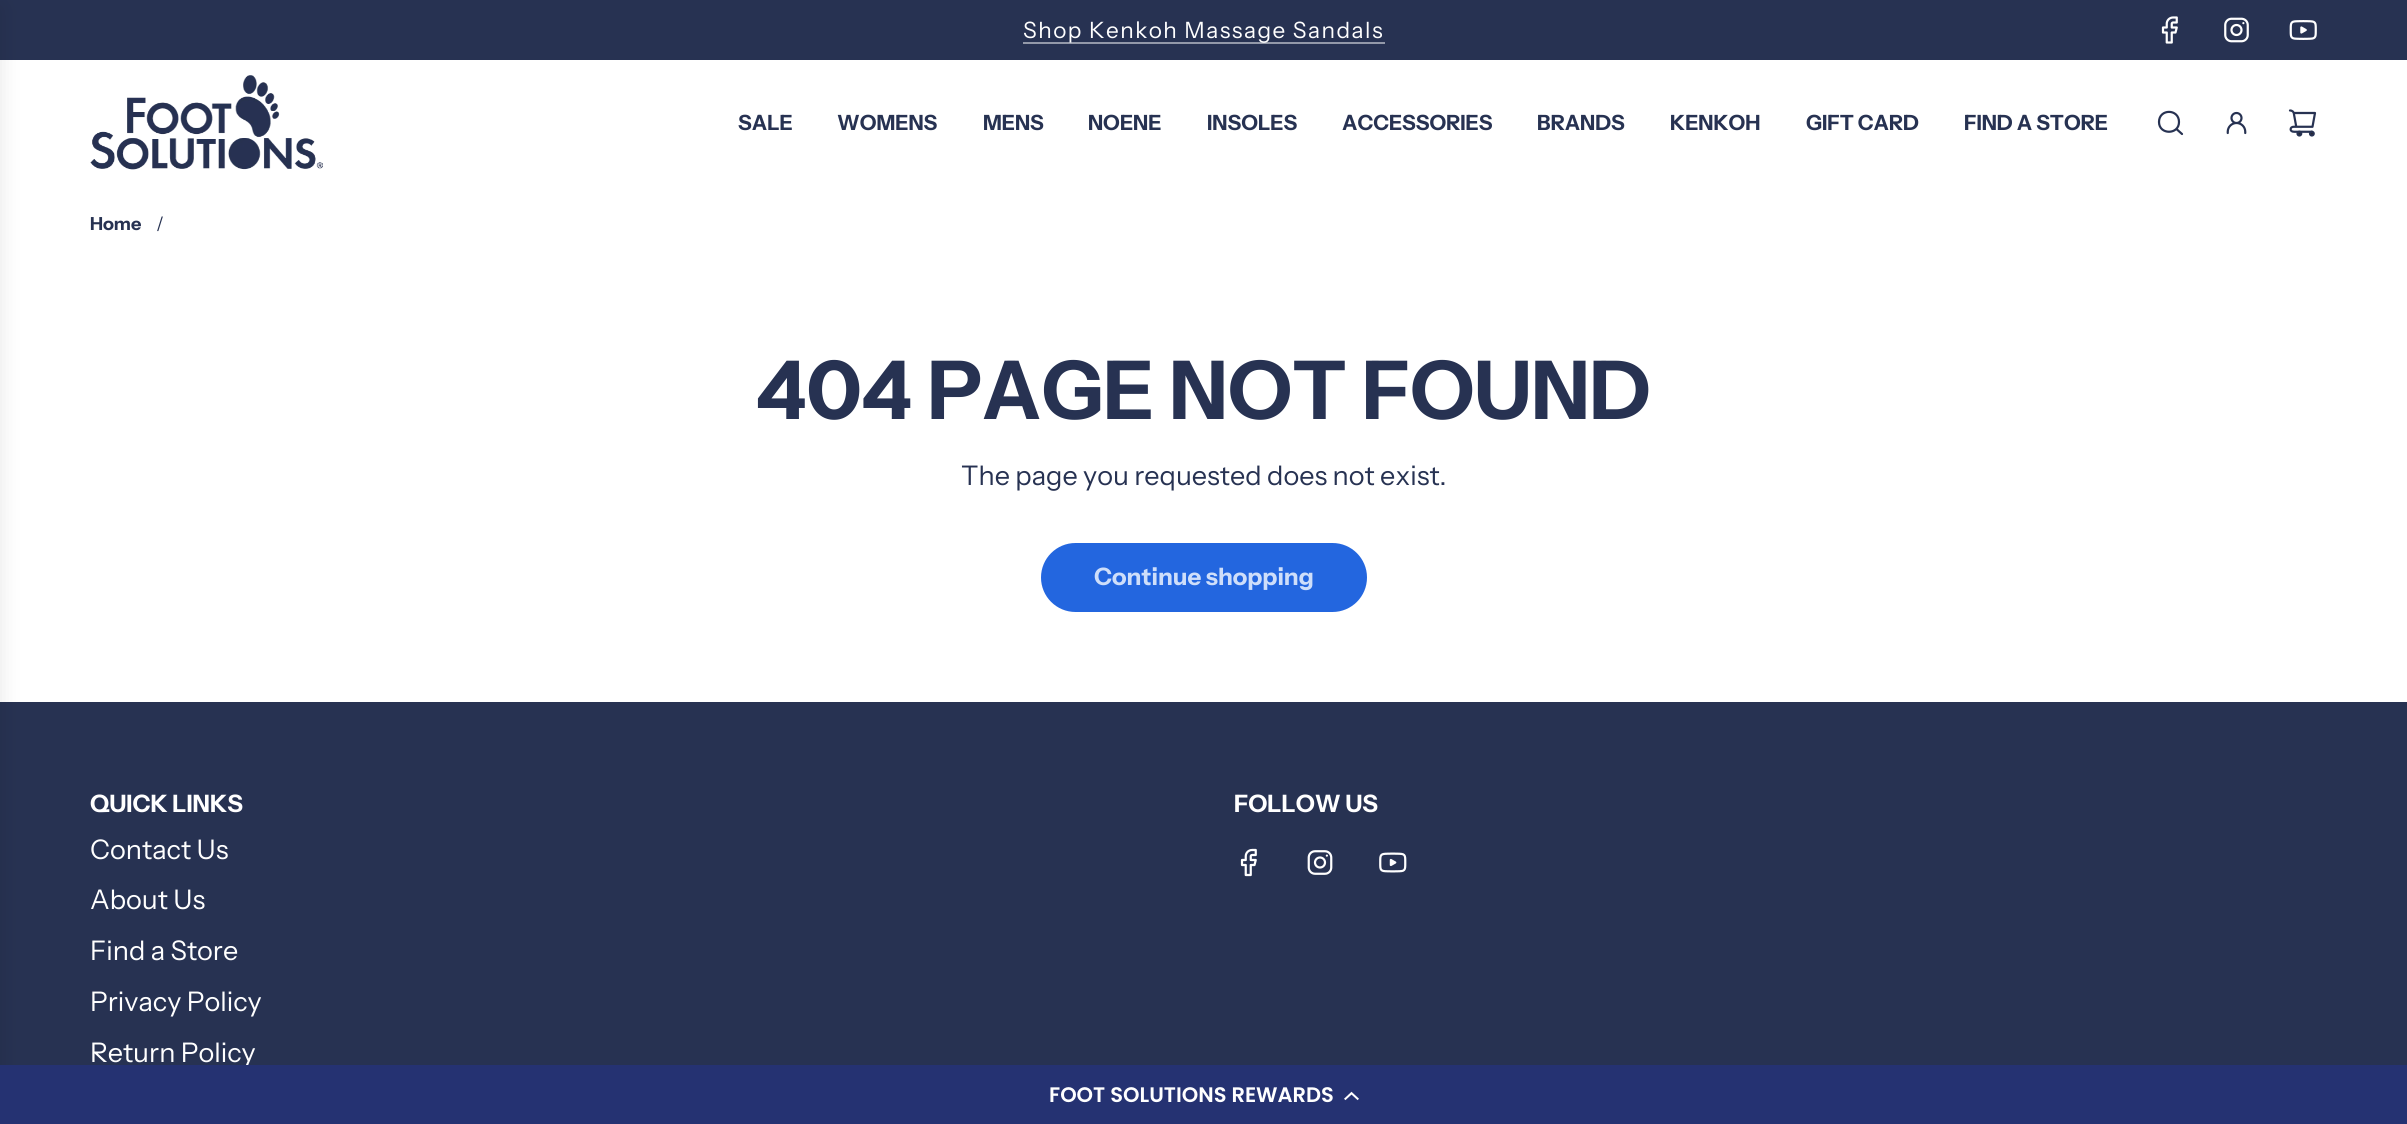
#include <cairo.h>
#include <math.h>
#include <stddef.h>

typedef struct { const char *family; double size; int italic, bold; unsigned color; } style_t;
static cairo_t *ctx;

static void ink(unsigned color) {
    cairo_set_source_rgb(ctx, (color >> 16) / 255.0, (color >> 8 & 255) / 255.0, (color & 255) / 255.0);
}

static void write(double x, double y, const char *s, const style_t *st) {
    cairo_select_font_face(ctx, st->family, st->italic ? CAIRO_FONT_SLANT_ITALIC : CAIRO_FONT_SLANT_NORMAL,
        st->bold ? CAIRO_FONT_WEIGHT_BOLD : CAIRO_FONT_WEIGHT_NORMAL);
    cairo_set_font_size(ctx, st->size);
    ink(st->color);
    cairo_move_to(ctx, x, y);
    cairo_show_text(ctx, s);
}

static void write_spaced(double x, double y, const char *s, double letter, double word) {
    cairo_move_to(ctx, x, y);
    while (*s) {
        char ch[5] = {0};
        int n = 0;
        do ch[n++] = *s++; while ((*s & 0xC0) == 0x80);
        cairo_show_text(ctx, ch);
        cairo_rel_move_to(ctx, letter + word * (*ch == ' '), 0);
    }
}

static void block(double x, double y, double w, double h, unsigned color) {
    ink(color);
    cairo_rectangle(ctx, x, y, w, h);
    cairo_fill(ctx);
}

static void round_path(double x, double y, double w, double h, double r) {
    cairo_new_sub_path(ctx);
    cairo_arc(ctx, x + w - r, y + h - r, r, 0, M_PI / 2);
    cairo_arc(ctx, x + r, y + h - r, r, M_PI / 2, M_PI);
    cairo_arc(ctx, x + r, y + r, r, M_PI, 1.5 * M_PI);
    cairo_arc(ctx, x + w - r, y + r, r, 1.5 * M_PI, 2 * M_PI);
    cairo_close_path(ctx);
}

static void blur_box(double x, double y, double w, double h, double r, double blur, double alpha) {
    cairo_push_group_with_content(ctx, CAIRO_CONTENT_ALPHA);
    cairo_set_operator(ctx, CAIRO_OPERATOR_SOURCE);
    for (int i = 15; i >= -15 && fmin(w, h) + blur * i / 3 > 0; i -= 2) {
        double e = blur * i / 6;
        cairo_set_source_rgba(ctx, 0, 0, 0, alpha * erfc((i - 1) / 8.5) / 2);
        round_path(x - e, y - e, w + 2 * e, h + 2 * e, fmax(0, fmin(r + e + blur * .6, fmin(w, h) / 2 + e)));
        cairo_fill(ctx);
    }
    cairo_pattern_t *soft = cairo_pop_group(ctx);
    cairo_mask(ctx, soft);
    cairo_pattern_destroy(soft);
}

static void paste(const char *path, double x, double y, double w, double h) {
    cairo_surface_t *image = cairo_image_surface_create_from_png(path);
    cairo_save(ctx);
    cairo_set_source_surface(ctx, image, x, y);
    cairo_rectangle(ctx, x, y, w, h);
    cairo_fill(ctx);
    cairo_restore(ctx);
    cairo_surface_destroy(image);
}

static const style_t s1 = {"Instrument Sans", 21, 0, 1, 0x273252};
static const style_t s2 = {"Instrument Sans", 18, 0, 1, 0x273252};
static const style_t s3 = {"Instrument Sans", 18, 0, 0, 0x273252};
static const style_t s4 = {"Instrument Sans", 81, 0, 1, 0x273252};
static const style_t s5 = {"Instrument Sans", 27, 0, 0, 0x273252};
static const style_t s6 = {"Instrument Sans", 24, 0, 1, 0xcedefa};
static const style_t s7 = {"Instrument Sans", 24, 0, 1, 0xffffff};
static const style_t s8 = {"Instrument Sans", 27, 0, 0, 0xffffff};
static const style_t s9 = {"Poppins SemiBold", 21, 0, 0, 0xffffff};

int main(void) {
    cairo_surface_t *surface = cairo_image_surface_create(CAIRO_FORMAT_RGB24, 2407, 1124);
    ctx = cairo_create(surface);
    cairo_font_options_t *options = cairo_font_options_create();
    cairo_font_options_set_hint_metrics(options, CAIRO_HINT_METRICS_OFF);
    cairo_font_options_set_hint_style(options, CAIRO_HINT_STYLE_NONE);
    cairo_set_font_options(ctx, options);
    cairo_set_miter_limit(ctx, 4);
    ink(0xffffff);
    cairo_paint(ctx);
    block(0, 0, 2407, 60, 0x273252);
    block(1023, 42, 362, 2, 0x9399a9);
    cairo_select_font_face(ctx, "Instrument Sans", CAIRO_FONT_SLANT_NORMAL, CAIRO_FONT_WEIGHT_NORMAL);
    cairo_set_font_size(ctx, 22.5);
    ink(0xffffff);
    write_spaced(1023, 38, "Shop Kenkoh Massage Sandals", 1.5, 0);
    paste("pic1.png", 2161, 16, 17, 28);
    paste("pic2.png", 2224, 17, 25, 26);
    paste("pic3.png", 2289, 20, 28, 20);
    block(0, 702, 2407, 363, 0x273252);
    ink(0x000000);
    blur_box(-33, 8, 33, 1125, 0, 11, 0.1);
    paste("pic4.png", 90, 75, 233, 95);
    write(738, 130, "SALE", &s1);
    write(837, 130, "WOMENS", &s1);
    write(983, 130, "MENS", &s1);
    write(1088, 130, "NOENE", &s1);
    write(1207, 130, "INSOLES", &s1);
    write(1342, 130, "ACCESSORIES", &s1);
    write(1537, 130, "BRANDS", &s1);
    write(1670, 130, "KENKOH", &s1);
    write(1806, 130, "GIFT CARD", &s1);
    write(1964, 130, "FIND A STORE", &s1);
    cairo_new_path(ctx);
    cairo_move_to(ctx, 2177, 129.5);
    cairo_line_to(ctx, 2182, 134);
    cairo_move_to(ctx, 2159, 122);
    cairo_curve_to(ctx, 2159, 135, 2179, 135, 2179, 122);
    cairo_curve_to(ctx, 2179, 108.5, 2159, 108.5, 2159, 122);
    cairo_close_path(ctx);
    cairo_set_line_width(ctx, 2.2);
    cairo_set_line_cap(ctx, CAIRO_LINE_CAP_ROUND);
    cairo_set_line_join(ctx, CAIRO_LINE_JOIN_ROUND);
    cairo_stroke(ctx);
    paste("pic5.png", 2226, 111, 21, 24);
    paste("pic6.png", 2288, 109, 29, 28);
    write(90, 230, "Home", &s2);
    write(156, 230, "/", &s3);
    write(756, 419, "404 PAGE NOT FOUND", &s4);
    write(961, 485, "The page you requested does not exist.", &s5);
    ink(0x2366df);
    round_path(1041, 543, 326, 69, 34.5);
    cairo_fill(ctx);
    write(1094, 585, "Continue shopping", &s6);
    write(90, 812, "QUICK LINKS", &s7);
    write(90, 859, "Contact Us", &s8);
    write(90, 909, "About Us", &s8);
    write(90, 960, "Find a Store", &s8);
    write(90, 1011, "Privacy Policy", &s8);
    write(90, 1062, "Return Policy", &s8);
    write(1234, 812, "FOLLOW US", &s7);
    paste("pic7.png", 1240, 848, 17, 29);
    paste("pic8.png", 1307, 850, 26, 25);
    paste("pic9.png", 1379, 852, 28, 21);
    block(0, 1065, 2407, 59, 0x253272);
    write(1049, 1102, "FOOT SOLUTIONS REWARDS", &s9);
    paste("pic10.png", 1344, 1091, 15, 10);
    cairo_surface_write_to_png(surface, "screenshot.png");
    cairo_font_options_destroy(options);
    cairo_destroy(ctx);
    cairo_surface_destroy(surface);
    return 0;
}
